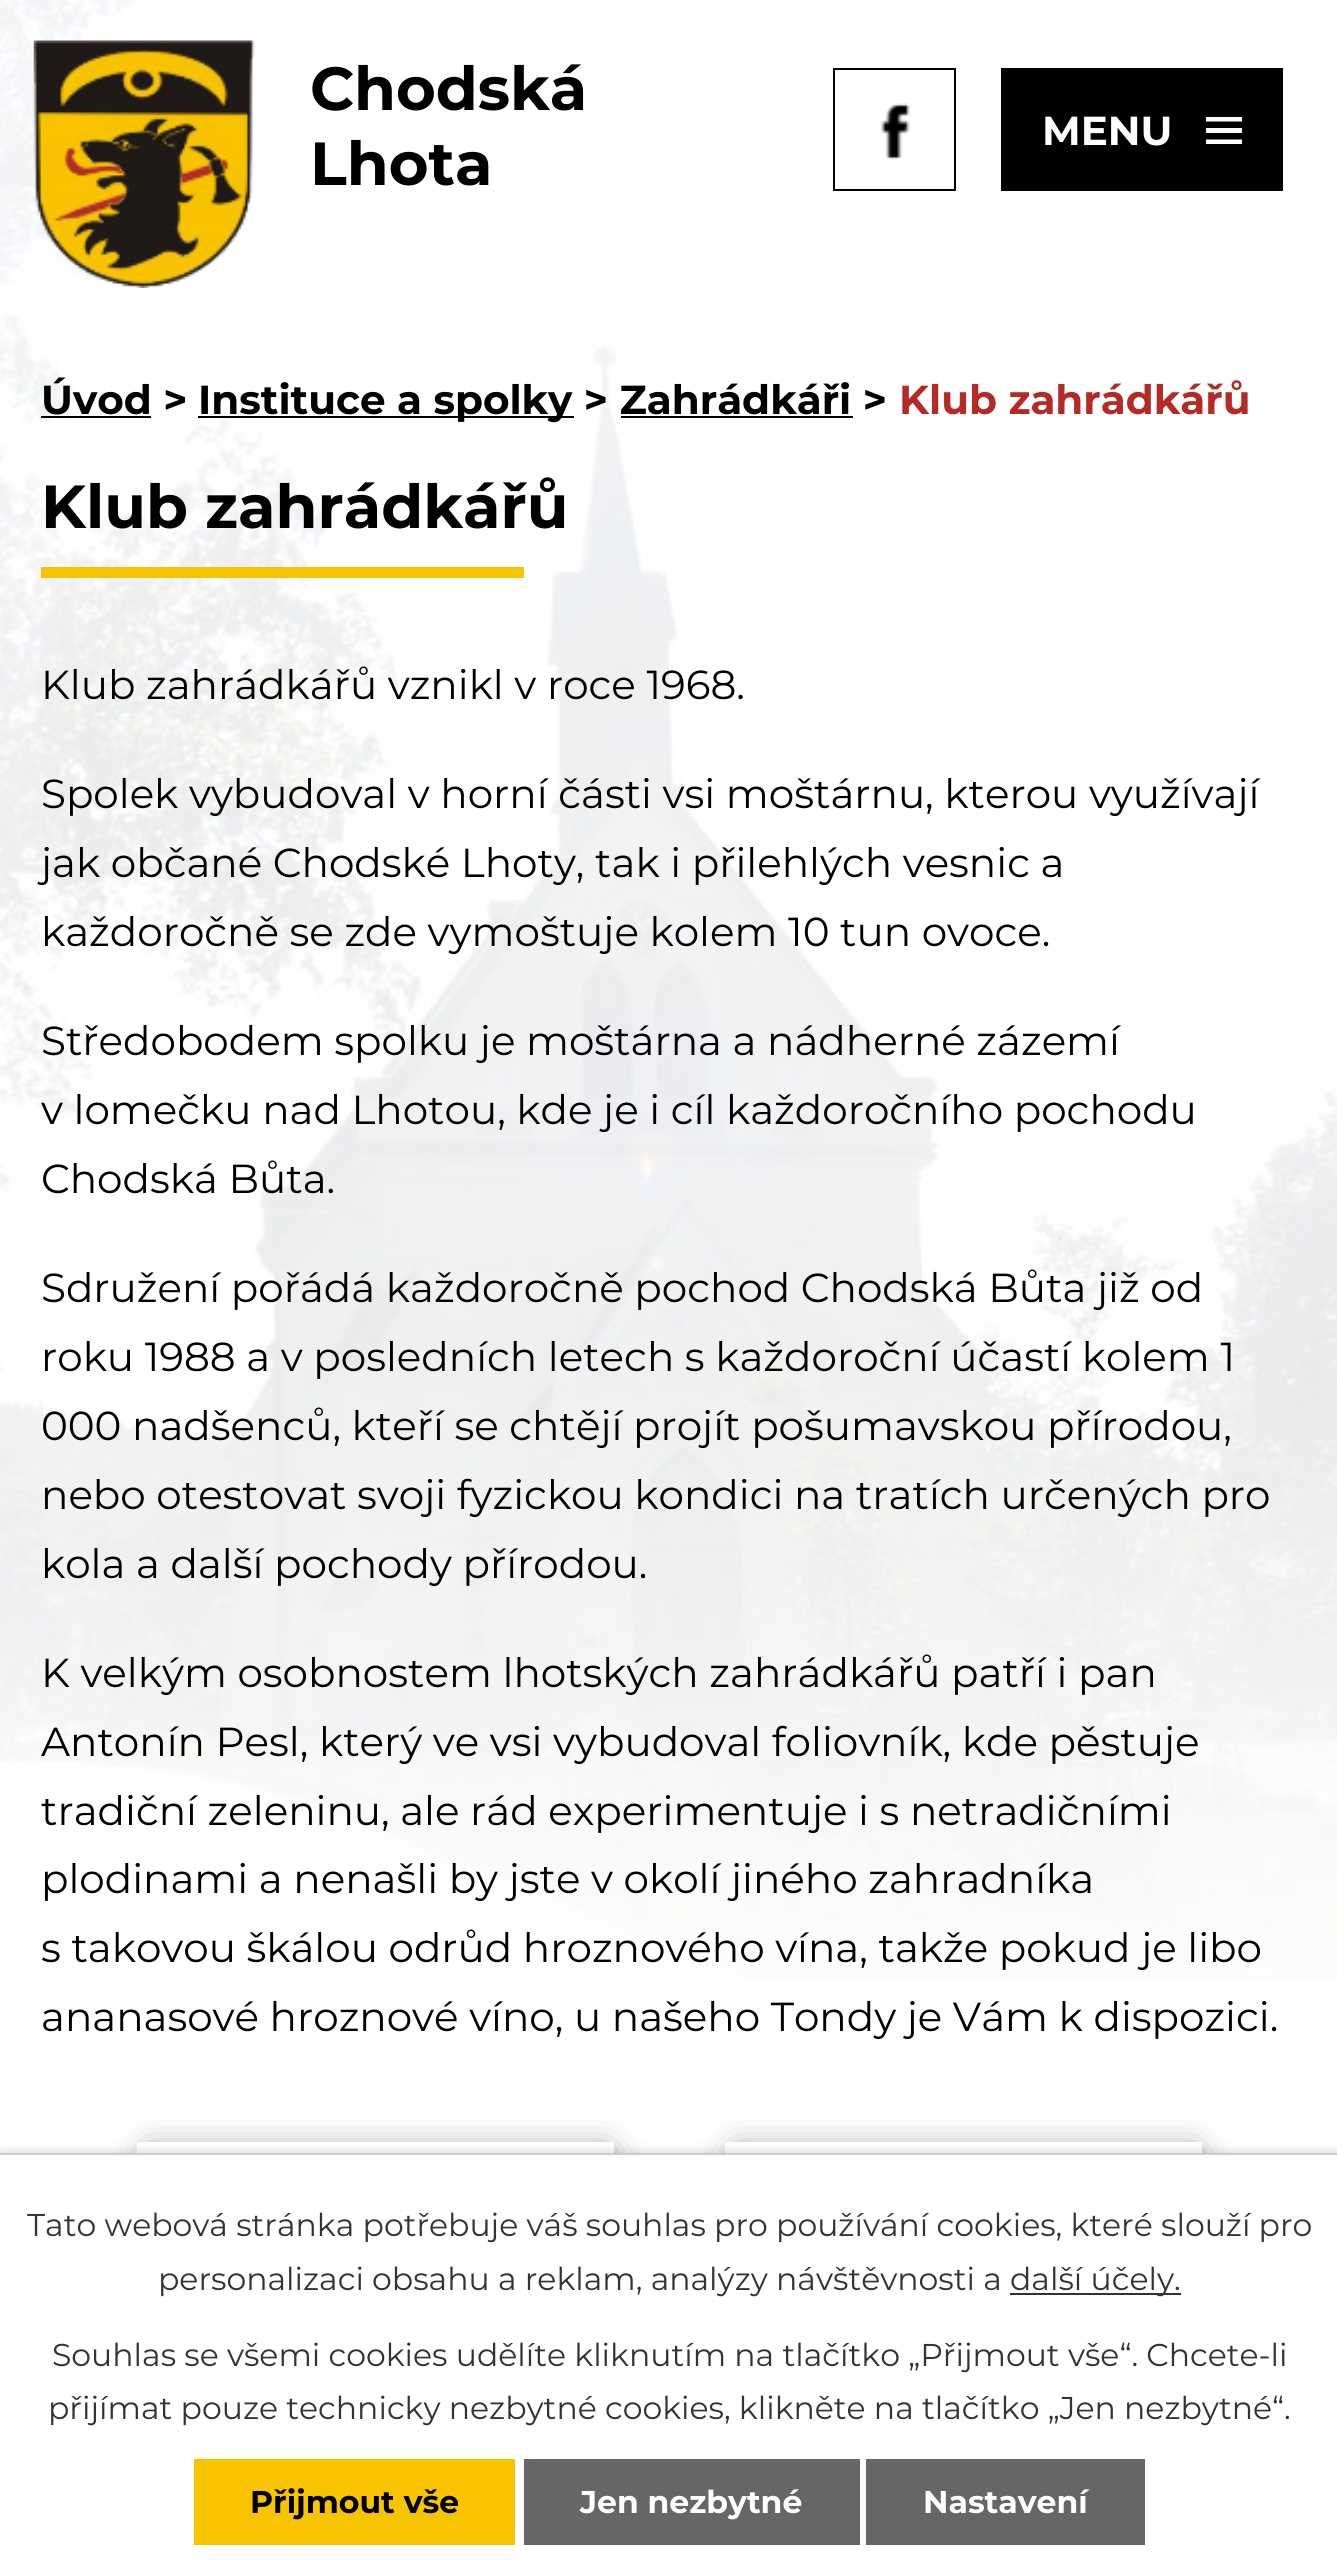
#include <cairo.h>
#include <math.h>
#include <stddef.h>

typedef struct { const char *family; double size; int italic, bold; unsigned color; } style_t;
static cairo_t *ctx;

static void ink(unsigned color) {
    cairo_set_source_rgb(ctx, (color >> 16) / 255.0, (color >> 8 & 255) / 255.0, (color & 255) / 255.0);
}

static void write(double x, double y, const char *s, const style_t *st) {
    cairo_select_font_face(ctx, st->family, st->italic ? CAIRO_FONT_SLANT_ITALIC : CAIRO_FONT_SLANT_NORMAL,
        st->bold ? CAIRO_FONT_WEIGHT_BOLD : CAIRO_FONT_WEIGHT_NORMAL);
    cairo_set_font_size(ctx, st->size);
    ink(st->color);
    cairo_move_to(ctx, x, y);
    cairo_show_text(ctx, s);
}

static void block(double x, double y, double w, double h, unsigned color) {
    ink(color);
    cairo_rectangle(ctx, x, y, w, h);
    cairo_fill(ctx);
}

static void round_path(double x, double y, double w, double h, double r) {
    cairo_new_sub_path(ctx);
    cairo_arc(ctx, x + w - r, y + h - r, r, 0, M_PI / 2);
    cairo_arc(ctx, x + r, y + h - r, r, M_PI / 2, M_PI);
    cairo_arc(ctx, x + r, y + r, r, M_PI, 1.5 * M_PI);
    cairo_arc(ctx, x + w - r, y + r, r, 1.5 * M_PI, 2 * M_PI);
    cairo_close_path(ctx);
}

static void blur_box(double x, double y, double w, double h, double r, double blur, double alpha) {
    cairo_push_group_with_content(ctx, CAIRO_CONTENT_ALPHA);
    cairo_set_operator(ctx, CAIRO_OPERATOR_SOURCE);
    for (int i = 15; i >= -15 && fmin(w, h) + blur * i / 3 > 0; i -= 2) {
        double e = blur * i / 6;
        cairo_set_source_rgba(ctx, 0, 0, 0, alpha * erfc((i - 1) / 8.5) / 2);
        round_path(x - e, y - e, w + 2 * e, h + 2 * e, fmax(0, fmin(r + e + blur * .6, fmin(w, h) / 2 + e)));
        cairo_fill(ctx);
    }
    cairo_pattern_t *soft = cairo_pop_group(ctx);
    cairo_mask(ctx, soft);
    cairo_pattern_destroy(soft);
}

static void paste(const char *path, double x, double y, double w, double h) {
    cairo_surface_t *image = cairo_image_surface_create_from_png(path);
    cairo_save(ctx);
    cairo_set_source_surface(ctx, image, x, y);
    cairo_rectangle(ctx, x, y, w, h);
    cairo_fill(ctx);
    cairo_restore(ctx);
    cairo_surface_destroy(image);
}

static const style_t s1 = {"Montserrat", 60.75, 0, 1, 0x000000};
static const style_t s2 = {"Montserrat", 40.5, 0, 1, 0xffffff};
static const style_t s3 = {"Montserrat", 40.5, 0, 1, 0x000000};
static const style_t s4 = {"Montserrat", 40.5, 0, 1, 0xb42a27};
static const style_t s5 = {"Montserrat", 40.5, 0, 0, 0x000000};
static const style_t s6 = {"Montserrat", 31.5, 0, 0, 0x333333};
static const style_t s7 = {"Montserrat", 31.5, 0, 1, 0x000000};
static const style_t s8 = {"Montserrat", 31.5, 0, 1, 0xffffff};

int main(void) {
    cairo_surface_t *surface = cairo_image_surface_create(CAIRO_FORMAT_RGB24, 1337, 2567);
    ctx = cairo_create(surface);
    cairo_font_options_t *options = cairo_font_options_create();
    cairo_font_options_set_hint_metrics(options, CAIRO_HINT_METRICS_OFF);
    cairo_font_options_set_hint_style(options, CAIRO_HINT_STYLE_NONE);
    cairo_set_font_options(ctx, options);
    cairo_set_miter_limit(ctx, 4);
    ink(0xffffff);
    cairo_paint(ctx);
    paste("pic1.png", 0, 0, 1337, 1980);
    paste("pic2.png", 33, 40, 222, 248);
    write(310, 110, "Chodská", &s1);
    write(310, 185, "Lhota", &s1);
    cairo_rectangle(ctx, 834, 69, 121, 121);
    cairo_stroke(ctx);
    paste("pic3.png", 880, 103, 30, 57);
    block(1001, 68, 282, 123, 0x000000);
    write(1042, 145, "MENU", &s2);
    cairo_new_path(ctx);
    cairo_move_to(ctx, 1206, 144);
    cairo_line_to(ctx, 1206, 139.5);
    cairo_line_to(ctx, 1242, 139.5);
    cairo_line_to(ctx, 1242, 144);
    cairo_close_path(ctx);
    cairo_move_to(ctx, 1206, 117);
    cairo_line_to(ctx, 1242, 117);
    cairo_line_to(ctx, 1242, 121.5);
    cairo_line_to(ctx, 1206, 121.5);
    cairo_close_path(ctx);
    cairo_move_to(ctx, 1206, 133);
    cairo_line_to(ctx, 1206, 128);
    cairo_line_to(ctx, 1242, 128);
    cairo_line_to(ctx, 1242, 133);
    cairo_close_path(ctx);
    cairo_fill(ctx);
    write(41, 414, "Úvod >", &s3);
    block(41, 416, 110, 2, 0x000000);
    block(198, 416, 376, 2, 0x000000);
    write(198, 414, "Instituce a spolky > Zahrádkáři >", &s3);
    write(899, 414, "Klub zahrádkářů", &s4);
    block(621, 416, 232, 2, 0x000000);
    write(41, 528, "Klub zahrádkářů", &s1);
    block(41, 567, 483, 11, 0xf8c301);
    write(41, 699, "Klub zahrádkářů vznikl v roce 1968.", &s5);
    write(41, 808, "Spolek vybudoval v horní části vsi moštárnu, kterou využívají", &s5);
    write(41, 877, "jak občané Chodské Lhoty, tak i přilehlých vesnic a", &s5);
    write(41, 946, "každoročně se zde vymoštuje kolem 10 tun ovoce.", &s5);
    write(41, 1055, "Středobodem spolku je moštárna a nádherné zázemí", &s5);
    write(41, 1124, "v lomečku nad Lhotou, kde je i cíl každoročního pochodu", &s5);
    write(41, 1193, "Chodská Bůta.", &s5);
    write(41, 1302, "Sdružení pořádá každoročně pochod Chodská Bůta již od", &s5);
    write(41, 1371, "roku 1988 a v posledních letech s každoroční účastí kolem 1", &s5);
    write(41, 1440, "000 nadšenců, kteří se chtějí projít pošumavskou přírodou,", &s5);
    write(41, 1509, "nebo otestovat svoji fyzickou kondici na tratích určených pro", &s5);
    write(41, 1578, "kola a další pochody přírodou.", &s5);
    write(41, 1687, "K velkým osobnostem lhotských zahrádkářů patří i pan", &s5);
    write(41, 1756, "Antonín Pesl, který ve vsi vybudoval foliovník, kde pěstuje", &s5);
    write(41, 1825, "tradiční zeleninu, ale rád experimentuje i s netradičními", &s5);
    write(41, 1893, "plodinami a nenašli by jste v okolí jiného zahradníka", &s5);
    write(41, 1962, "s takovou škálou odrůd hroznového vína, takže pokud je libo", &s5);
    write(41, 2031, "ananasové hroznové víno, u našeho Tondy je Vám k dispozici.", &s5);
    ink(0x888888);
    blur_box(149, 2153, 459, 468, 0, 18, 1);
    block(137, 2142, 477, 11, 0xffffff);
    ink(0x888888);
    blur_box(736, 2153, 459, 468, 0, 18, 1);
    block(725, 2142, 477, 11, 0xffffff);
    ink(0x000000);
    blur_box(0, 2153, 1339, 414, 0, 5.5, 0.2);
    block(0, 2155, 1337, 412, 0xffffff);
    block(0, 2153, 1337, 2, 0xcccccc);
    write(27, 2236, "Tato webová stránka potřebuje váš souhlas pro používání cookies, které slouží pro", &s6);
    write(158, 2290, "personalizaci obsahu a reklam, analýzy návštěvnosti a", &s6);
    block(1010, 2293, 171, 2, 0x333333);
    write(1010, 2290, "další účely.", &s6);
    write(52, 2366, "Souhlas se všemi cookies udělíte kliknutím na tlačítko „Přijmout vše“. Chcete-li", &s6);
    write(48, 2419, "přijímat pouze technicky nezbytné cookies, klikněte na tlačítko „Jen nezbytné“.", &s6);
    block(194, 2459, 321, 86, 0xf8c301);
    write(250, 2513, "Přijmout vše", &s7);
    block(524, 2459, 336, 86, 0x666666);
    write(580, 2513, "Jen nezbytné", &s8);
    block(866, 2459, 279, 86, 0x666666);
    write(923, 2513, "Nastavení", &s8);
    cairo_surface_write_to_png(surface, "screenshot.png");
    cairo_font_options_destroy(options);
    cairo_destroy(ctx);
    cairo_surface_destroy(surface);
    return 0;
}
